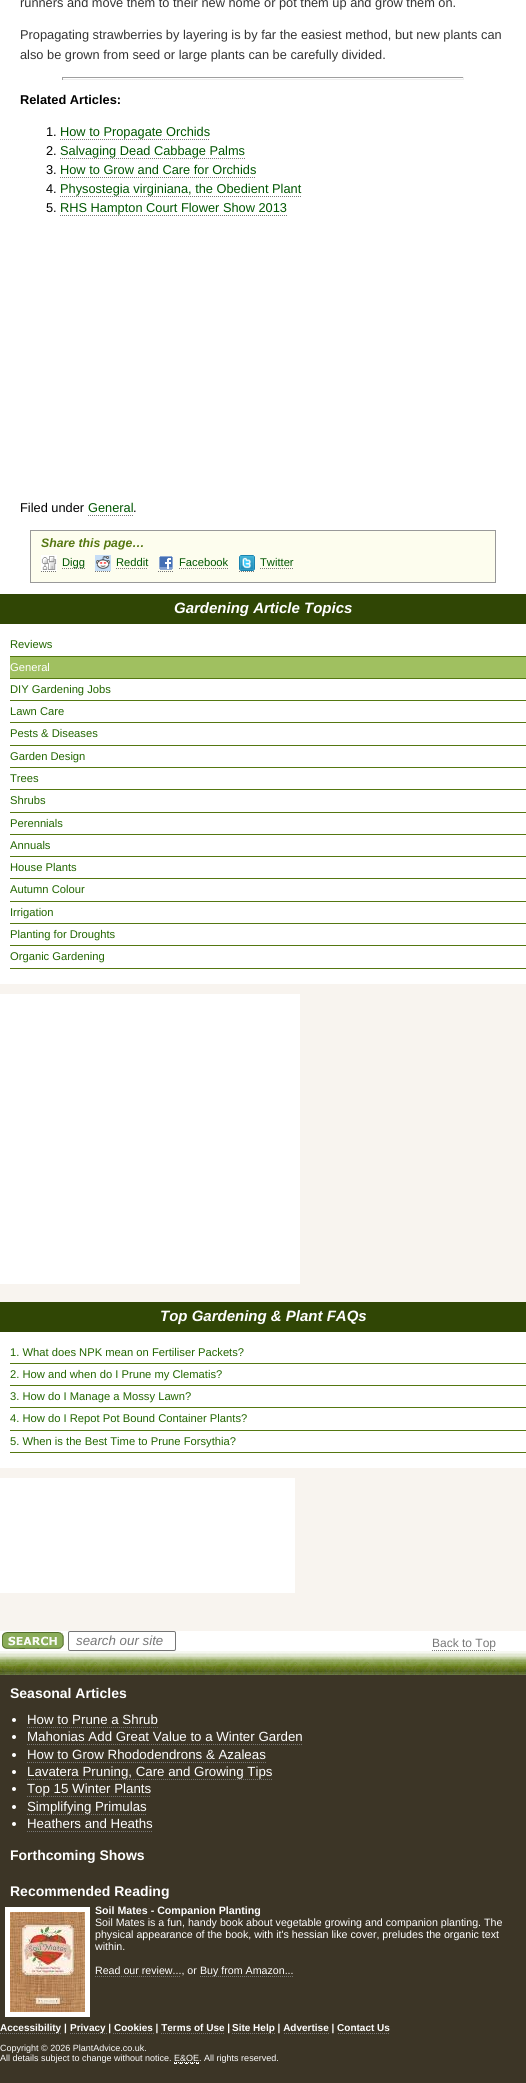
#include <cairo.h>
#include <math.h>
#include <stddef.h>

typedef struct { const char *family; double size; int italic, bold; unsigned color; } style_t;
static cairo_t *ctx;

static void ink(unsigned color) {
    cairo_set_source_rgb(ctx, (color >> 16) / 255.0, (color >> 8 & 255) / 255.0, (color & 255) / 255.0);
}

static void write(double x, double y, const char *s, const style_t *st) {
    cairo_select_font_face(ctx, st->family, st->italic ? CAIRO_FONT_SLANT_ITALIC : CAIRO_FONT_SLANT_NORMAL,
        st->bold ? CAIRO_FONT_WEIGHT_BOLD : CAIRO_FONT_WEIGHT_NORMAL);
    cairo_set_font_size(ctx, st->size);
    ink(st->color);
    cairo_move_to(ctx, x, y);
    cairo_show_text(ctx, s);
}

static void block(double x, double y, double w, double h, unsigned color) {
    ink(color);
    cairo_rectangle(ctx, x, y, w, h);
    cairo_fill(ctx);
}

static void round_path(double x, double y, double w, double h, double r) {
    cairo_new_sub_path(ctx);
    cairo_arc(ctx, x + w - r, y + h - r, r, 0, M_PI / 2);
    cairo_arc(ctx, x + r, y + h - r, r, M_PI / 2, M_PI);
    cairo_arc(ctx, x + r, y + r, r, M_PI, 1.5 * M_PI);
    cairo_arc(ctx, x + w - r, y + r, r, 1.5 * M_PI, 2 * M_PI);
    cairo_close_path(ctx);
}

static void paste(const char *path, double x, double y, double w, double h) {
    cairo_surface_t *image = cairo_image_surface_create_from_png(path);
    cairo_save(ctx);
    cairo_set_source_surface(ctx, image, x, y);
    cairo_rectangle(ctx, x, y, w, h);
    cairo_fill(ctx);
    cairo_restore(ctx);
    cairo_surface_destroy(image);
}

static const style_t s1 = {"Liberation Sans", 12.8, 0, 0, 0x333333};
static const style_t s2 = {"Liberation Sans", 12.8, 0, 1, 0x000000};
static const style_t s3 = {"Liberation Sans", 12.8, 0, 0, 0x000000};
static const style_t s4 = {"Liberation Sans", 12.8, 0, 0, 0x005500};
static const style_t s5 = {"Liberation Sans", 12.25, 1, 1, 0x557711};
static const style_t s6 = {"Liberation Sans", 11.2, 0, 0, 0x005500};
static const style_t s7 = {"Liberation Sans", 15, 1, 1, 0xffffff};
static const style_t s8 = {"Liberation Sans", 11.2, 0, 0, 0x226600};
static const style_t s9 = {"Liberation Sans", 11.2, 0, 0, 0xffffff};
static const style_t s10 = {"Liberation Sans", 13.3, 1, 0, 0x777777};
static const style_t s11 = {"Liberation Sans", 12, 0, 0, 0x777777};
static const style_t s12 = {"Liberation Sans", 14, 0, 1, 0xffffff};
static const style_t s13 = {"Liberation Sans", 13.3, 0, 0, 0xffffff};
static const style_t s14 = {"Liberation Sans", 10.65, 0, 1, 0xffffff};
static const style_t s15 = {"Liberation Sans", 10.65, 0, 0, 0xffffff};
static const style_t s16 = {"Liberation Sans", 10, 0, 1, 0xffffff};
static const style_t s17 = {"Liberation Sans", 9, 0, 0, 0xffffff};

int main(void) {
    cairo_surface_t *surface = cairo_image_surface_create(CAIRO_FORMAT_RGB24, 526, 2083);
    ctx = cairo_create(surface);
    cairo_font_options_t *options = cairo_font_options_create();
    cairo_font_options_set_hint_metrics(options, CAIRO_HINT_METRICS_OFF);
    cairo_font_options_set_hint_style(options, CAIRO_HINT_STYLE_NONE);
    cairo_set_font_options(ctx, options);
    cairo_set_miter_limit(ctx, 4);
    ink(0xffffff);
    cairo_paint(ctx);
    block(0, 984, 526, 647, 0xf8f4ef);
    write(20, 7, "runners and move them to their new home or pot them up and grow them on.", &s1);
    write(20, 39, "Propagating strawberries by layering is by far the easiest method, but new plants can", &s1);
    write(20, 59, "also be grown from seed or large plants can be carefully divided.", &s1);
    block(62, 77, 402, 1, 0x9f9f9f);
    block(463, 77, 1, 3, 0xeeeeee);
    block(62, 79, 402, 1, 0xeeeeee);
    block(62, 77, 1, 3, 0x9f9f9f);
    write(20, 104, "Related Articles:", &s2);
    write(46, 136, "1.", &s3);
    write(60, 136, "How to Propagate Orchids", &s4);
    cairo_new_path(ctx);
    cairo_move_to(ctx, 60, 139.5);
    cairo_line_to(ctx, 210, 139.5);
    ink(0x777777);
    cairo_set_line_width(ctx, 1);
    cairo_set_dash(ctx, (double[]){1, 1}, 2, 0);
    cairo_stroke(ctx);
    write(46, 155, "2.", &s3);
    write(60, 155, "Salvaging Dead Cabbage Palms", &s4);
    cairo_new_path(ctx);
    cairo_move_to(ctx, 60, 158.5);
    cairo_line_to(ctx, 245, 158.5);
    ink(0x777777);
    cairo_stroke(ctx);
    write(46, 174, "3.", &s3);
    write(60, 174, "How to Grow and Care for Orchids", &s4);
    cairo_new_path(ctx);
    cairo_move_to(ctx, 60, 177.5);
    cairo_line_to(ctx, 256, 177.5);
    ink(0x777777);
    cairo_stroke(ctx);
    write(46, 193, "4.", &s3);
    write(60, 193, "Physostegia virginiana, the Obedient Plant", &s4);
    cairo_new_path(ctx);
    cairo_move_to(ctx, 60, 196.5);
    cairo_line_to(ctx, 301, 196.5);
    ink(0x777777);
    cairo_stroke(ctx);
    write(46, 212, "5.", &s3);
    write(60, 212, "RHS Hampton Court Flower Show 2013", &s4);
    cairo_new_path(ctx);
    cairo_move_to(ctx, 60, 215.5);
    cairo_line_to(ctx, 287, 215.5);
    ink(0x777777);
    cairo_stroke(ctx);
    write(20, 512, "Filed under", &s3);
    write(88, 512, "General", &s4);
    cairo_new_path(ctx);
    cairo_move_to(ctx, 88, 515.5);
    cairo_line_to(ctx, 133, 515.5);
    ink(0x777777);
    cairo_stroke(ctx);
    write(133, 512, ".", &s3);
    ink(0xfdfdee);
    cairo_rectangle(ctx, 30.5, 530.5, 465, 52);
    cairo_fill_preserve(ctx);
    ink(0x999999);
    cairo_set_dash(ctx, NULL, 0, 0);
    cairo_stroke(ctx);
    write(41, 547, "Share this page…", &s5);
    cairo_new_path(ctx);
    cairo_move_to(ctx, 41, 571.5);
    cairo_line_to(ctx, 57, 571.5);
    cairo_move_to(ctx, 62, 568.5);
    cairo_line_to(ctx, 85, 568.5);
    ink(0x777777);
    cairo_set_dash(ctx, (double[]){1, 1}, 2, 0);
    cairo_stroke(ctx);
    paste("pic1.png", 41, 555, 16, 16);
    write(62, 566, "Digg", &s6);
    cairo_new_path(ctx);
    cairo_move_to(ctx, 95, 571.5);
    cairo_line_to(ctx, 111, 571.5);
    cairo_move_to(ctx, 116, 568.5);
    cairo_line_to(ctx, 148, 568.5);
    ink(0x777777);
    cairo_stroke(ctx);
    paste("pic2.png", 95, 555, 16, 16);
    write(116, 566, "Reddit", &s6);
    paste("pic3.png", 159, 556, 14, 14);
    write(179, 566, "Facebook", &s6);
    cairo_new_path(ctx);
    cairo_move_to(ctx, 158, 571.5);
    cairo_line_to(ctx, 174, 571.5);
    ink(0x777777);
    cairo_stroke(ctx);
    cairo_new_path(ctx);
    cairo_move_to(ctx, 179, 568.5);
    cairo_line_to(ctx, 229, 568.5);
    cairo_stroke(ctx);
    cairo_new_path(ctx);
    cairo_move_to(ctx, 239, 571.5);
    cairo_line_to(ctx, 255, 571.5);
    cairo_move_to(ctx, 260, 568.5);
    cairo_line_to(ctx, 293, 568.5);
    cairo_stroke(ctx);
    paste("pic4.png", 239, 555, 16, 16);
    write(260, 566, "Twitter", &s6);
    block(0, 594, 526, 30, 0x304605);
    write(174, 613, "Gardening Article Topics", &s7);
    block(10, 656, 516, 1, 0x557711);
    write(10, 648, "Reviews", &s8);
    block(10, 657, 516, 21, 0xa0c060);
    block(10, 678, 516, 1, 0x557711);
    write(10, 671, "General", &s9);
    block(10, 700, 516, 1, 0x557711);
    write(10, 693, "DIY Gardening Jobs", &s8);
    block(10, 722, 516, 1, 0x557711);
    write(10, 715, "Lawn Care", &s8);
    block(10, 745, 516, 1, 0x557711);
    write(10, 737, "Pests & Diseases", &s8);
    block(10, 767, 516, 1, 0x557711);
    write(10, 760, "Garden Design", &s8);
    block(10, 789, 516, 1, 0x557711);
    write(10, 782, "Trees", &s8);
    block(10, 812, 516, 1, 0x557711);
    write(10, 804, "Shrubs", &s8);
    block(10, 834, 516, 1, 0x557711);
    write(10, 827, "Perennials", &s8);
    block(10, 856, 516, 1, 0x557711);
    write(10, 849, "Annuals", &s8);
    block(10, 878, 516, 1, 0x557711);
    write(10, 871, "House Plants", &s8);
    block(10, 901, 516, 1, 0x557711);
    write(10, 893, "Autumn Colour", &s8);
    block(10, 923, 516, 1, 0x557711);
    write(10, 916, "Irrigation", &s8);
    block(10, 945, 516, 1, 0x557711);
    write(10, 938, "Planting for Droughts", &s8);
    block(10, 968, 516, 1, 0x557711);
    write(10, 960, "Organic Gardening", &s8);
    block(0, 994, 300, 290, 0xffffff);
    block(0, 1332, 526, 136, 0xffffff);
    block(0, 1302, 526, 30, 0x304605);
    write(160, 1321, "Top Gardening & Plant FAQs", &s7);
    block(10, 1363, 516, 1, 0x557711);
    write(10, 1356, "1. What does NPK mean on Fertiliser Packets?", &s8);
    block(10, 1385, 516, 1, 0x557711);
    write(10, 1378, "2. How and when do I Prune my Clematis?", &s8);
    block(10, 1407, 516, 1, 0x557711);
    write(10, 1400, "3. How do I Manage a Mossy Lawn?", &s8);
    block(10, 1430, 516, 1, 0x557711);
    write(10, 1422, "4. How do I Repot Pot Bound Container Plants?", &s8);
    block(10, 1452, 516, 1, 0x557711);
    write(10, 1445, "5. When is the Best Time to Prune Forsythia?", &s8);
    block(0, 1478, 295, 115, 0xffffff);
    paste("pic5.png", 2, 1632, 62, 17);
    round_path(68.5, 1631.5, 107, 19, 1.5);
    ink(0x767676);
    cairo_set_dash(ctx, NULL, 0, 0);
    cairo_stroke(ctx);
    write(76, 1645, "search our site", &s10);
    paste("pic6.png", 0, 1651, 526, 24);
    write(432, 1647, "Back to Top", &s11);
    cairo_new_path(ctx);
    cairo_move_to(ctx, 432, 1650.5);
    cairo_line_to(ctx, 496, 1650.5);
    cairo_set_dash(ctx, (double[]){1, 1}, 2, 0);
    cairo_stroke(ctx);
    block(0, 1675, 526, 408, 0x3c3526);
    write(10, 1698, "Seasonal Articles", &s12);
    cairo_new_path(ctx);
    cairo_arc(ctx, 14, 1720, 2, 0, 2 * M_PI);
    cairo_fill(ctx);
    write(27, 1724, "How to Prune a Shrub", &s13);
    cairo_new_path(ctx);
    cairo_move_to(ctx, 27, 1727.5);
    cairo_line_to(ctx, 158, 1727.5);
    ink(0x777777);
    cairo_stroke(ctx);
    ink(0xffffff);
    cairo_arc(ctx, 14, 1737, 2, 0, 2 * M_PI);
    cairo_fill(ctx);
    write(27, 1741, "Mahonias Add Great Value to a Winter Garden", &s13);
    cairo_new_path(ctx);
    cairo_move_to(ctx, 27, 1744.5);
    cairo_line_to(ctx, 303, 1744.5);
    ink(0x777777);
    cairo_stroke(ctx);
    ink(0xffffff);
    cairo_arc(ctx, 14, 1755, 2, 0, 2 * M_PI);
    cairo_fill(ctx);
    write(27, 1759, "How to Grow Rhododendrons & Azaleas", &s13);
    cairo_new_path(ctx);
    cairo_move_to(ctx, 27, 1762.5);
    cairo_line_to(ctx, 266, 1762.5);
    ink(0x777777);
    cairo_stroke(ctx);
    ink(0xffffff);
    cairo_arc(ctx, 14, 1772, 2, 0, 2 * M_PI);
    cairo_fill(ctx);
    write(27, 1776, "Lavatera Pruning, Care and Growing Tips", &s13);
    cairo_new_path(ctx);
    cairo_move_to(ctx, 27, 1779.5);
    cairo_line_to(ctx, 273, 1779.5);
    ink(0x777777);
    cairo_stroke(ctx);
    ink(0xffffff);
    cairo_arc(ctx, 14, 1789, 2, 0, 2 * M_PI);
    cairo_fill(ctx);
    write(27, 1793, "Top 15 Winter Plants", &s13);
    cairo_new_path(ctx);
    cairo_move_to(ctx, 27, 1796.5);
    cairo_line_to(ctx, 151, 1796.5);
    ink(0x777777);
    cairo_stroke(ctx);
    ink(0xffffff);
    cairo_arc(ctx, 14, 1807, 2, 0, 2 * M_PI);
    cairo_fill(ctx);
    write(27, 1811, "Simplifying Primulas", &s13);
    cairo_new_path(ctx);
    cairo_move_to(ctx, 27, 1814.5);
    cairo_line_to(ctx, 147, 1814.5);
    ink(0x777777);
    cairo_stroke(ctx);
    ink(0xffffff);
    cairo_arc(ctx, 14, 1824, 2, 0, 2 * M_PI);
    cairo_fill(ctx);
    write(27, 1828, "Heathers and Heaths", &s13);
    cairo_new_path(ctx);
    cairo_move_to(ctx, 27, 1831.5);
    cairo_line_to(ctx, 153, 1831.5);
    ink(0x777777);
    cairo_stroke(ctx);
    write(10, 1860, "Forthcoming Shows", &s12);
    write(10, 1896, "Recommended Reading", &s12);
    cairo_rectangle(ctx, 7.5, 1909.5, 80, 105);
    cairo_set_line_width(ctx, 5);
    cairo_set_dash(ctx, NULL, 0, 0);
    cairo_stroke(ctx);
    paste("pic7.png", 10, 1912, 75, 100);
    write(95, 1914, "Soil Mates - Companion Planting", &s14);
    write(95, 1926, "Soil Mates is a fun, handy book about vegetable growing and companion planting. The", &s15);
    write(95, 1938, "physical appearance of the book, with it's hessian like cover, preludes the organic text", &s15);
    write(95, 1950, "within.", &s15);
    write(95, 1974, "Read our review..., or", &s15);
    cairo_new_path(ctx);
    cairo_move_to(ctx, 95, 1976.5);
    cairo_line_to(ctx, 181, 1976.5);
    ink(0x777777);
    cairo_set_line_width(ctx, 1);
    cairo_set_dash(ctx, (double[]){1, 1}, 2, 0);
    cairo_stroke(ctx);
    cairo_new_path(ctx);
    cairo_move_to(ctx, 200, 1976.5);
    cairo_line_to(ctx, 293, 1976.5);
    cairo_stroke(ctx);
    write(200, 1974, "Buy from Amazon...", &s15);
    cairo_new_path(ctx);
    cairo_move_to(ctx, 0, 2033.5);
    cairo_line_to(ctx, 61, 2033.5);
    ink(0x777777);
    cairo_stroke(ctx);
    write(0, 2031, "Accessibility |", &s16);
    cairo_new_path(ctx);
    cairo_move_to(ctx, 70, 2033.5);
    cairo_line_to(ctx, 108, 2033.5);
    ink(0x777777);
    cairo_stroke(ctx);
    write(70, 2031, "Privacy | Cookies | Terms of Use |", &s16);
    cairo_new_path(ctx);
    cairo_move_to(ctx, 232, 2033.5);
    cairo_line_to(ctx, 275, 2033.5);
    ink(0x777777);
    cairo_stroke(ctx);
    write(232, 2031, "Site Help | Advertise | Contact Us", &s16);
    cairo_new_path(ctx);
    cairo_move_to(ctx, 113, 2033.5);
    cairo_line_to(ctx, 155, 2033.5);
    ink(0x777777);
    cairo_stroke(ctx);
    cairo_new_path(ctx);
    cairo_move_to(ctx, 161, 2033.5);
    cairo_line_to(ctx, 224, 2033.5);
    cairo_stroke(ctx);
    cairo_new_path(ctx);
    cairo_move_to(ctx, 284, 2033.5);
    cairo_line_to(ctx, 329, 2033.5);
    cairo_stroke(ctx);
    cairo_new_path(ctx);
    cairo_move_to(ctx, 338, 2033.5);
    cairo_line_to(ctx, 390, 2033.5);
    cairo_stroke(ctx);
    write(0, 2051, "Copyright © 2026 PlantAdvice.co.uk.", &s17);
    write(0, 2061, "All details subject to change without notice. E&OE. All rights reserved.", &s17);
    cairo_new_path(ctx);
    cairo_move_to(ctx, 174, 2063.5);
    cairo_line_to(ctx, 199, 2063.5);
    cairo_set_dash(ctx, (double[]){3, 2.5}, 2, 0);
    cairo_stroke(ctx);
    cairo_new_path(ctx);
    cairo_move_to(ctx, 174, 2062.5);
    cairo_line_to(ctx, 199, 2062.5);
    cairo_set_dash(ctx, (double[]){1, 1}, 2, 0);
    cairo_stroke(ctx);
    cairo_surface_write_to_png(surface, "screenshot.png");
    cairo_font_options_destroy(options);
    cairo_destroy(ctx);
    cairo_surface_destroy(surface);
    return 0;
}
